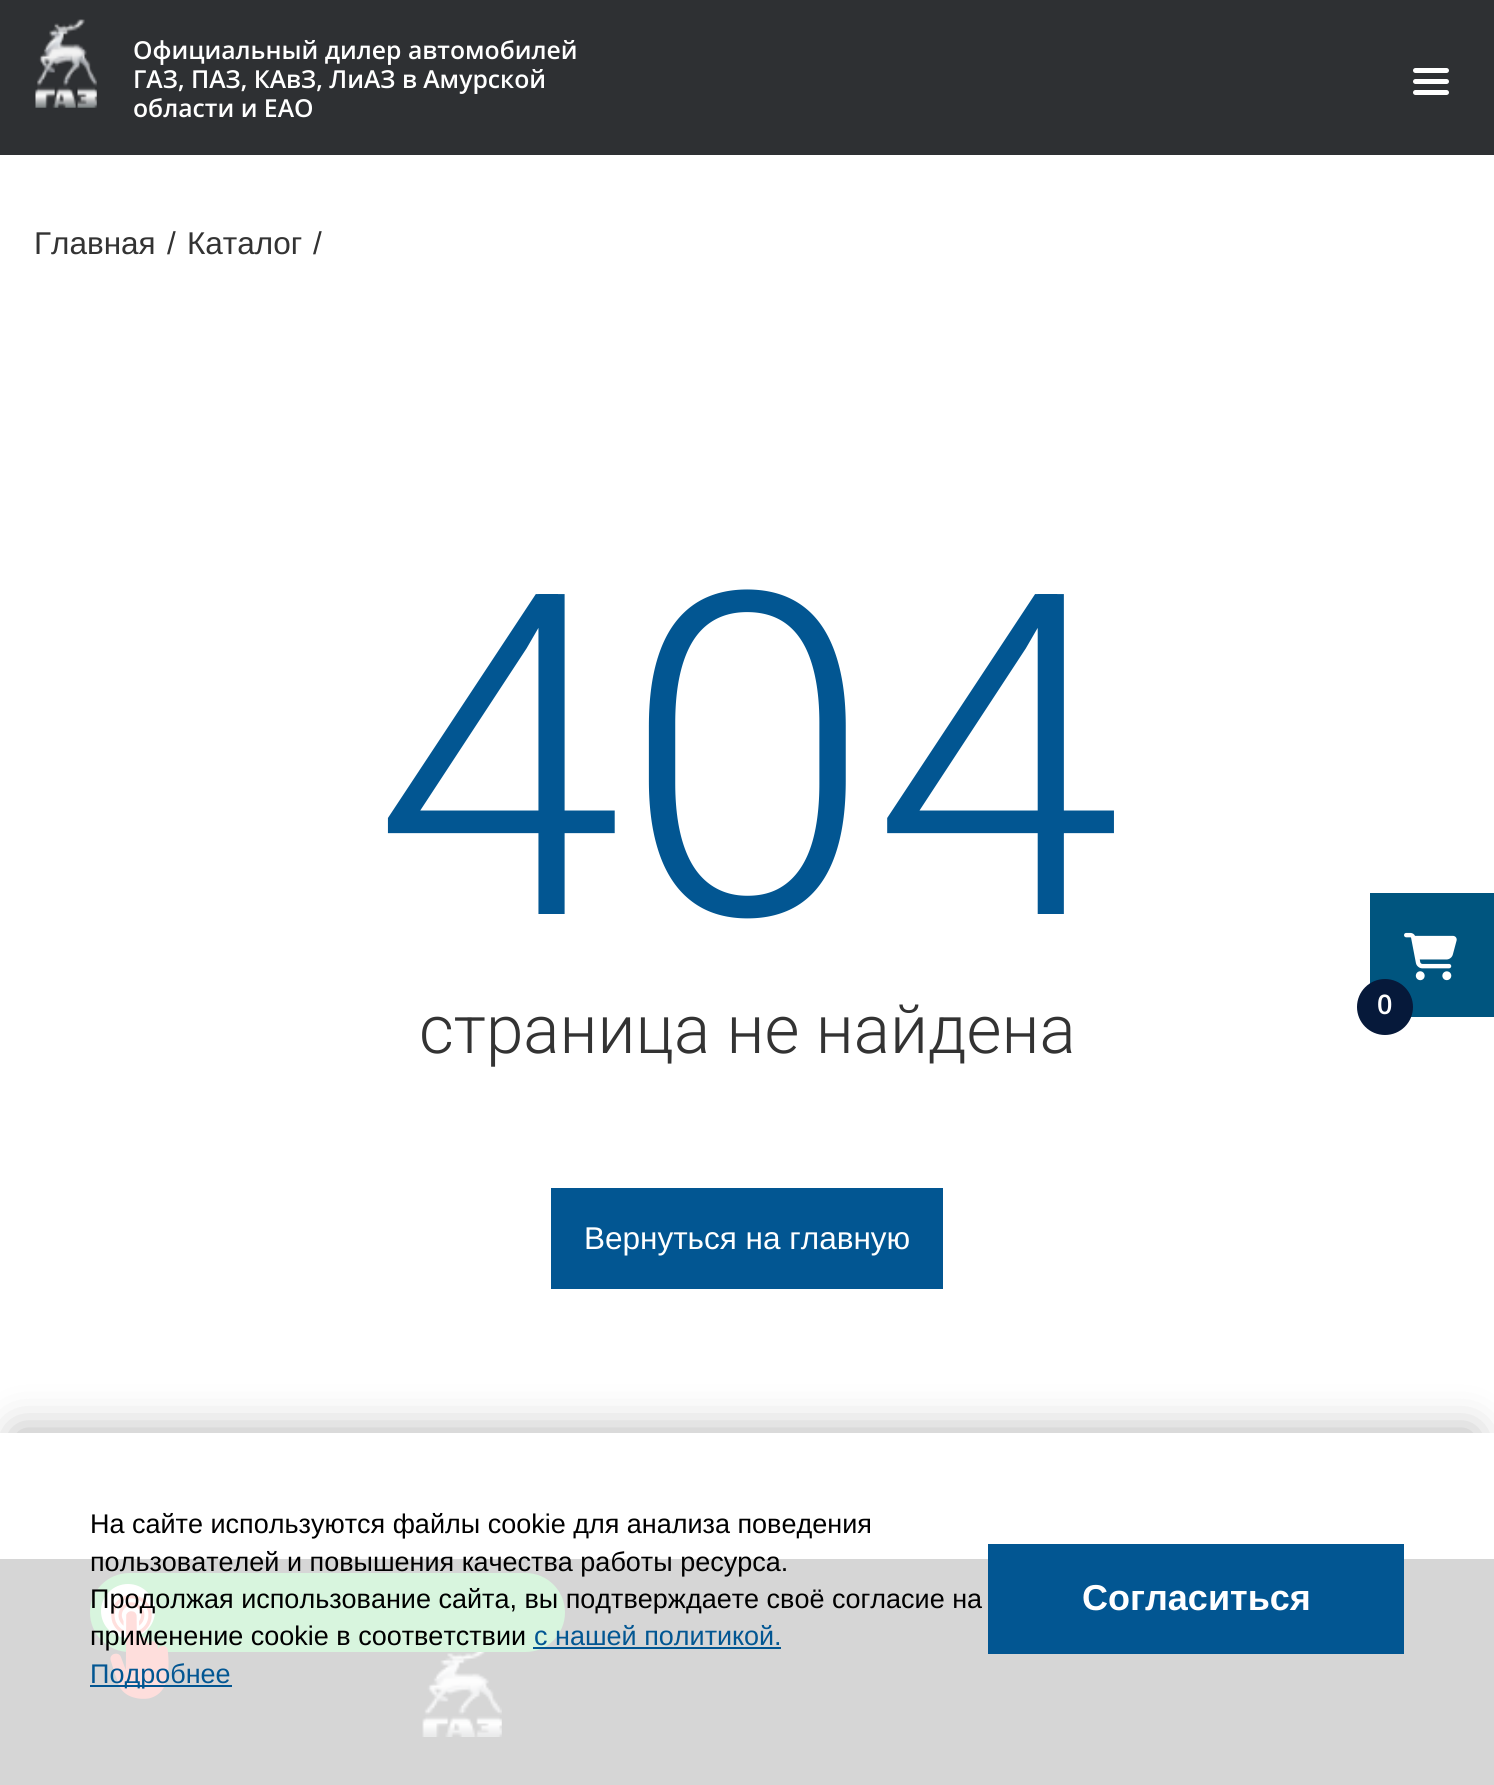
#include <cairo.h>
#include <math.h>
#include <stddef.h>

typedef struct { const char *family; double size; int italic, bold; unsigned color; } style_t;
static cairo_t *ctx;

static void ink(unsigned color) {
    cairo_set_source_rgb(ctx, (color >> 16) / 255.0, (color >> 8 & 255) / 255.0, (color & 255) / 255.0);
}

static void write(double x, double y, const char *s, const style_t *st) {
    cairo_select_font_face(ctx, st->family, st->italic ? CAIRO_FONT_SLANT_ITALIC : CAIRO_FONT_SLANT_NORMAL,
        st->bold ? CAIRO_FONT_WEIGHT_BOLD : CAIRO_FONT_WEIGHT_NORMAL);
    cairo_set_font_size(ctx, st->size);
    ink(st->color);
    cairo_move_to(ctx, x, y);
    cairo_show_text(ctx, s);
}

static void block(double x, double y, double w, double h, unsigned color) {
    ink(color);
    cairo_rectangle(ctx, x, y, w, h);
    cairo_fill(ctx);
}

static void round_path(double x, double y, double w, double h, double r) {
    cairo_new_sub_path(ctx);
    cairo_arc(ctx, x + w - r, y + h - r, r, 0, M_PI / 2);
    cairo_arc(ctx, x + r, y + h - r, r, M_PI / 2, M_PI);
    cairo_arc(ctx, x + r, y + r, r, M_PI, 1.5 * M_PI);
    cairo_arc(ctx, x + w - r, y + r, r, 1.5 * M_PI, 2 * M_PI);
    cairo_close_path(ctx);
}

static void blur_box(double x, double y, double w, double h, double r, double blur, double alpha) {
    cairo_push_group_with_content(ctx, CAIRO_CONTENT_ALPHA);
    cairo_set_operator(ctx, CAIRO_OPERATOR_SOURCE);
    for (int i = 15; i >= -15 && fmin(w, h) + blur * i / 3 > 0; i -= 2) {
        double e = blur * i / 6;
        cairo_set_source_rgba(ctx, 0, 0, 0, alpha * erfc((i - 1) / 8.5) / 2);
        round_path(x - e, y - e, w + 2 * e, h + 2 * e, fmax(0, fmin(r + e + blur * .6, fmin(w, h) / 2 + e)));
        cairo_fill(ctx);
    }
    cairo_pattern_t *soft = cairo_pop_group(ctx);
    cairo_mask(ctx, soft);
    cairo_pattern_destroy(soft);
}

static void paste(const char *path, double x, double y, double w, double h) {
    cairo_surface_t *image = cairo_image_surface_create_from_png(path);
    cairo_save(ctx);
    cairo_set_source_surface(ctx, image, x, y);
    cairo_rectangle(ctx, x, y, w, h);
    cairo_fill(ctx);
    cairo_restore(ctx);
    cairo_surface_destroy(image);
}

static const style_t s1 = {"Open Sans SemiBold", 24.75, 0, 0, 0xffffff};
static const style_t s2 = {"Open Sans SemiBold", 27, 0, 0, 0xffffff};
static const style_t s3 = {"Liberation Sans", 31.5, 0, 0, 0x333333};
static const style_t s4 = {"Roboto Light", 450, 0, 0, 0x025692};
static const style_t s5 = {"Roboto Light", 67.5, 0, 0, 0x333333};
static const style_t s6 = {"Liberation Sans", 31.5, 0, 0, 0xffffff};
static const style_t s7 = {"Liberation Sans", 27, 0, 0, 0x000000};
static const style_t s8 = {"Liberation Sans", 27, 0, 0, 0x025692};
static const style_t s9 = {"Liberation Sans", 36, 0, 1, 0xffffff};

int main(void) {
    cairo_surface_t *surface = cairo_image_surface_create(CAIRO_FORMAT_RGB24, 1494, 1785);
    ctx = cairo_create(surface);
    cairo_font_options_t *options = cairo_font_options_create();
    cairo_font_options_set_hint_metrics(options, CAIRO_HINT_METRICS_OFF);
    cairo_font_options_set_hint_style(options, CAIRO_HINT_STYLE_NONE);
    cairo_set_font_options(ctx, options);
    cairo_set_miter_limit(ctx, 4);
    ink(0xffffff);
    cairo_paint(ctx);
    block(0, 0, 1494, 155, 0x2e3033);
    paste("pic1.png", 35, 19, 62, 89);
    write(133, 59, "Официальный дилер автомобилей", &s1);
    write(133, 88, "ГАЗ, ПАЗ, КАвЗ, ЛиАЗ в Амурской", &s1);
    write(133, 117, "области и ЕАО", &s1);
    round_path(1413, 68, 36, 5, 2.5);
    cairo_fill(ctx);
    round_path(1413, 79, 36, 5, 2.5);
    cairo_fill(ctx);
    round_path(1413, 90, 36, 5, 2.5);
    cairo_fill(ctx);
    block(1370, 893, 124, 124, 0x00557f);
    paste("pic2.png", 1404, 932, 53, 49);
    ink(0x06193a);
    cairo_arc(ctx, 1385, 1007, 28, 0, 2 * M_PI);
    cairo_fill(ctx);
    write(1377, 1014, "0", &s2);
    write(34, 254, "Главная", &s3);
    write(167, 254, "/", &s3);
    write(187, 254, "Каталог", &s3);
    write(313, 254, "/", &s3);
    write(373, 914, "404", &s4);
    write(419, 1053, "страница не найдена", &s5);
    block(551, 1188, 392, 101, 0x025692);
    write(584, 1249, "Вернуться на главную", &s6);
    block(0, 1559, 1494, 226, 0x0b0c0d);
    ink(0x18c139);
    round_path(90, 1573, 475, 79, 39.5);
    cairo_fill(ctx);
    ink(0xffffff);
    cairo_arc(ctx, 128, 1611, 27, 0, 2 * M_PI);
    cairo_fill(ctx);
    paste("pic3.png", 110, 1595, 59, 104);
    paste("pic4.png", 422, 1652, 80, 85);
    cairo_save(ctx);
    cairo_set_fill_rule(ctx, CAIRO_FILL_RULE_EVEN_ODD);
    cairo_new_path(ctx);
    cairo_move_to(ctx, 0, 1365);
    cairo_line_to(ctx, 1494, 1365);
    cairo_line_to(ctx, 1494, 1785);
    cairo_line_to(ctx, 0, 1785);
    cairo_close_path(ctx);
    cairo_move_to(ctx, 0, 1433);
    cairo_line_to(ctx, 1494, 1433);
    cairo_line_to(ctx, 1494, 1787);
    cairo_line_to(ctx, 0, 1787);
    cairo_close_path(ctx);
    cairo_clip(ctx);
    ink(0x000000);
    blur_box(16, 1431, 1458, 317, 0, 21.5, 0.29);
    cairo_restore(ctx);
    cairo_set_source_rgba(ctx, 1, 1, 1, 0.83);
    cairo_rectangle(ctx, 0, 1433, 1494, 352);
    cairo_fill(ctx);
    write(90, 1533, "На сайте используются файлы cookie для анализа поведения", &s7);
    write(90, 1571, "пользователей и повышения качества работы ресурса.", &s7);
    write(90, 1608, "Продолжая использование сайта, вы подтверждаете своё согласие на", &s7);
    write(90, 1645, "применение cookie в соответствии", &s7);
    write(534, 1645, "с нашей политикой.", &s8);
    block(533, 1647, 248, 2, 0x025692);
    block(90, 1685, 142, 2, 0x025692);
    write(90, 1683, "Подробнее", &s8);
    block(988, 1544, 416, 110, 0x025692);
    write(1082, 1610, "Согласиться", &s9);
    cairo_surface_write_to_png(surface, "screenshot.png");
    cairo_font_options_destroy(options);
    cairo_destroy(ctx);
    cairo_surface_destroy(surface);
    return 0;
}
